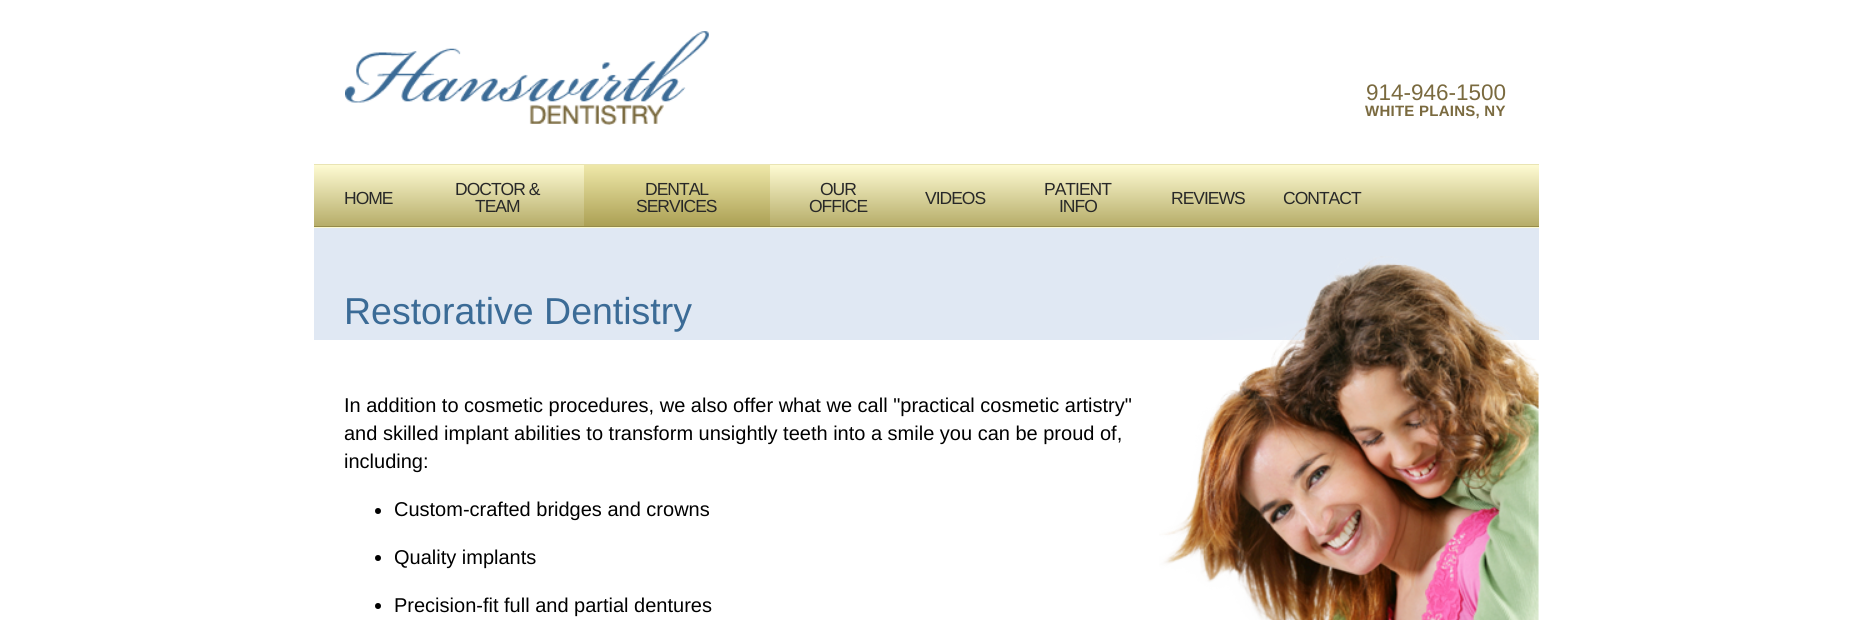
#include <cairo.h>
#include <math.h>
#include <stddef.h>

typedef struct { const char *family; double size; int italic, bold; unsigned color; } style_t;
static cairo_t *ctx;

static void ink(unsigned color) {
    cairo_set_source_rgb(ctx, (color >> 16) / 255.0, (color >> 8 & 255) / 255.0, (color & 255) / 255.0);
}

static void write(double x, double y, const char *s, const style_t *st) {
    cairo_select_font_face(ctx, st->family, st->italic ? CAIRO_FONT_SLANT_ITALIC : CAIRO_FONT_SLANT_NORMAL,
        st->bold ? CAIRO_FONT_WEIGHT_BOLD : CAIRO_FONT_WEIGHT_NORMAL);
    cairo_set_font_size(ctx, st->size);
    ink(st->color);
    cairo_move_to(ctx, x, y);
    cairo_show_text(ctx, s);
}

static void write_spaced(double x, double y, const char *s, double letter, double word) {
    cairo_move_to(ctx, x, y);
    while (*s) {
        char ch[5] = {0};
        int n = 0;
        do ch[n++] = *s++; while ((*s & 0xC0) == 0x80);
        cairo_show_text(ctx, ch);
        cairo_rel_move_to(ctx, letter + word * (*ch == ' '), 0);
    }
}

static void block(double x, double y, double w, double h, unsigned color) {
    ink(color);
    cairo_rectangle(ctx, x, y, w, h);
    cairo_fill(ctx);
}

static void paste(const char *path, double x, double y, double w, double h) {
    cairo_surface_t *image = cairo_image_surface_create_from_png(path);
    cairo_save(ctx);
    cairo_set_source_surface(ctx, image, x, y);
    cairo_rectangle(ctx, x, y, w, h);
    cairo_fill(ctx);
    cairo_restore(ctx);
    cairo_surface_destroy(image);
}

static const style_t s1 = {"Liberation Sans", 22.5, 0, 0, 0x7a6a3f};
static const style_t s2 = {"Liberation Sans", 37.5, 0, 0, 0x3b6b96};
static const style_t s3 = {"Liberation Sans", 20, 0, 0, 0x000000};

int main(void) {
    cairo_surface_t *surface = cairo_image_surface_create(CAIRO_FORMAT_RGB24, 1851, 620);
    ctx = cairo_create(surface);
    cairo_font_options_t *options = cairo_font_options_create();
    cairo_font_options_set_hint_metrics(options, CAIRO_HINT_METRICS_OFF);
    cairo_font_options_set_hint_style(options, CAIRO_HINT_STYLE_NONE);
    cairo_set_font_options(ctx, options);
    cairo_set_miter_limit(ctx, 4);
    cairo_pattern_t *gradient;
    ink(0xffffff);
    cairo_paint(ctx);
    paste("pic1.png", 345, 31, 364, 94);
    write(1366, 100, "914-946-1500", &s1);
    cairo_select_font_face(ctx, "Liberation Sans", CAIRO_FONT_SLANT_NORMAL, CAIRO_FONT_WEIGHT_BOLD);
    cairo_set_font_size(ctx, 15);
    write_spaced(1365, 116, "WHITE PLAINS, NY", 0.25, 0);
    gradient = cairo_pattern_create_linear(926, 165, 926, 226);
    cairo_pattern_add_color_stop_rgba(gradient, 0, 0.996, 0.984, 0.827, 1);
    cairo_pattern_add_color_stop_rgba(gradient, 1, 0.714, 0.678, 0.412, 1);
    cairo_set_source(ctx, gradient);
    cairo_pattern_destroy(gradient);
    cairo_rectangle(ctx, 314, 165, 1225, 61);
    cairo_fill(ctx);
    gradient = cairo_pattern_create_linear(926, 226, 926, 288);
    cairo_pattern_add_color_stop_rgba(gradient, 0, 0.996, 0.984, 0.827, 1);
    cairo_pattern_add_color_stop_rgba(gradient, 1, 0.714, 0.678, 0.412, 1);
    cairo_set_source(ctx, gradient);
    cairo_pattern_destroy(gradient);
    cairo_rectangle(ctx, 314, 227, 1225, 1);
    cairo_fill(ctx);
    block(314, 164, 1225, 1, 0xe9e4b4);
    block(314, 226, 1225, 1, 0x958b49);
    cairo_select_font_face(ctx, "Liberation Sans", CAIRO_FONT_SLANT_NORMAL, CAIRO_FONT_WEIGHT_NORMAL);
    cairo_set_font_size(ctx, 17.5);
    ink(0x282828);
    write_spaced(344, 204, "HOME", -1, 0);
    write_spaced(455, 195, "DOCTOR &", -1, 0);
    write_spaced(475, 212, "TEAM", -1, 0);
    gradient = cairo_pattern_create_linear(677, 165, 677, 226);
    cairo_pattern_add_color_stop_rgba(gradient, 0, 0.937, 0.91, 0.663, 1);
    cairo_pattern_add_color_stop_rgba(gradient, 1, 0.671, 0.627, 0.329, 1);
    cairo_set_source(ctx, gradient);
    cairo_pattern_destroy(gradient);
    cairo_rectangle(ctx, 584, 165, 186, 61);
    cairo_fill(ctx);
    ink(0x282828);
    write_spaced(645, 195, "DENTAL", -1, 0);
    write_spaced(636, 212, "SERVICES", -1, 0);
    write_spaced(820, 195, "OUR", -1, 0);
    write_spaced(809, 212, "OFFICE", -1, 0);
    write_spaced(925, 204, "VIDEOS", -1, 0);
    write_spaced(1044, 195, "PATIENT", -1, 0);
    write_spaced(1059, 212, "INFO", -1, 0);
    write_spaced(1171, 204, "REVIEWS", -1, 0);
    write_spaced(1283, 204, "CONTACT", -1, 0);
    block(314, 228, 1225, 112, 0xe0e8f3);
    write(344, 324, "Restorative Dentistry", &s2);
    paste("pic2.png", 1159, 256, 380, 364);
    write(344, 412, "In addition to cosmetic procedures, we also offer what we call \"practical cosmetic artistry\"", &s3);
    write(344, 440, "and skilled implant abilities to transform unsightly teeth into a smile you can be proud of,", &s3);
    write(344, 468, "including:", &s3);
    cairo_new_path(ctx);
    cairo_arc(ctx, 378, 511, 3, 0, 2 * M_PI);
    cairo_fill(ctx);
    write(394, 516, "Custom-crafted bridges and crowns", &s3);
    cairo_new_path(ctx);
    cairo_arc(ctx, 378, 558, 3, 0, 2 * M_PI);
    cairo_fill(ctx);
    write(394, 564, "Quality implants", &s3);
    cairo_new_path(ctx);
    cairo_arc(ctx, 378, 606, 3, 0, 2 * M_PI);
    cairo_fill(ctx);
    write(394, 612, "Precision-fit full and partial dentures", &s3);
    cairo_surface_write_to_png(surface, "screenshot.png");
    cairo_font_options_destroy(options);
    cairo_destroy(ctx);
    cairo_surface_destroy(surface);
    return 0;
}
